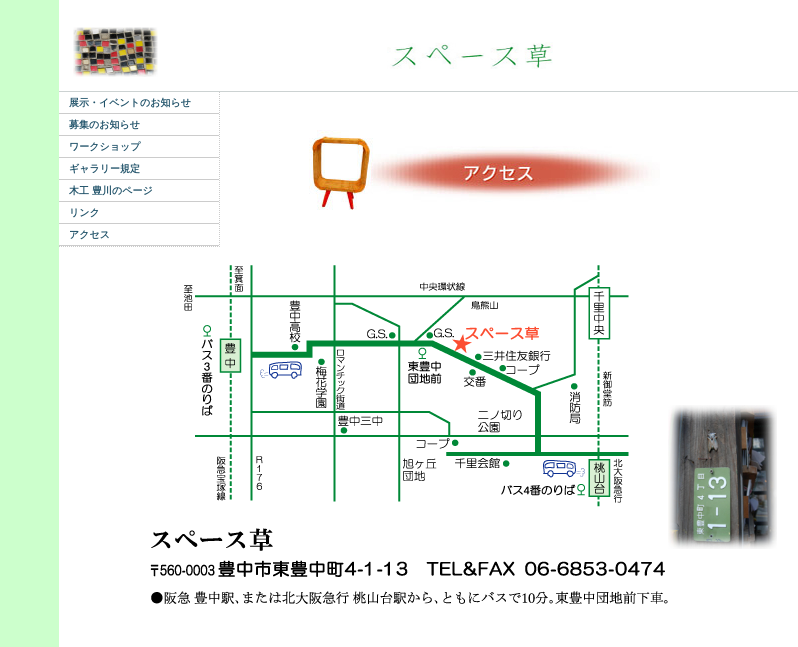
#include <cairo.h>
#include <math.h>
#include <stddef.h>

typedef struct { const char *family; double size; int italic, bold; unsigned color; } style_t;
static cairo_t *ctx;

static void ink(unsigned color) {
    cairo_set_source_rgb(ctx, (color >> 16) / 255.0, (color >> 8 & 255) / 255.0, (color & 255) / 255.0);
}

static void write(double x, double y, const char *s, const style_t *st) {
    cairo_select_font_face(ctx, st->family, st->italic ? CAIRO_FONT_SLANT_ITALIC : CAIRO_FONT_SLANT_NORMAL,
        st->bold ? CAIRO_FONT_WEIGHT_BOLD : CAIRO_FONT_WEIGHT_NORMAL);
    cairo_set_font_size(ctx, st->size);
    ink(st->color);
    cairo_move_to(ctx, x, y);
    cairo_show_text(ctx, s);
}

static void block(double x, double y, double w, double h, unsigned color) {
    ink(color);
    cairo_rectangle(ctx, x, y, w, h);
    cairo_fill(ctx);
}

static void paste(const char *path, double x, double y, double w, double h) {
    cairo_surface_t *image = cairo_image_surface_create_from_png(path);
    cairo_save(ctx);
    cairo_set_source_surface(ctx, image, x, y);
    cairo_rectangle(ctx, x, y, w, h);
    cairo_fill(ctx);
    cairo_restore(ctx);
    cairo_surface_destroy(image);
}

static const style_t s1 = {"WenQuanYi Zen Hei", 10, 0, 1, 0x21536a};

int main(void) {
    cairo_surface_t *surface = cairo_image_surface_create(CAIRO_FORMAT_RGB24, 798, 647);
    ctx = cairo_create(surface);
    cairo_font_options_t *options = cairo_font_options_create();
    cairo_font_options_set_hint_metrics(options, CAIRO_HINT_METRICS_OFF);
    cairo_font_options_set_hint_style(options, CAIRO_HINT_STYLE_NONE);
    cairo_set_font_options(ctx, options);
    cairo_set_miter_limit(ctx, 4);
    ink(0xccffcc);
    cairo_paint(ctx);
    block(59, 0, 739, 647, 0xffffff);
    paste("pic1.png", 73, 27, 85, 50);
    paste("pic2.png", 309, 130, 351, 80);
    paste("pic3.png", 668, 405, 109, 144);
    block(59, 91, 739, 1, 0xccd2d2);
    paste("pic4.png", 387, 42, 166, 27);
    cairo_new_path(ctx);
    cairo_move_to(ctx, 219.5, 92);
    cairo_line_to(ctx, 219.5, 247);
    ink(0xcccccc);
    cairo_set_line_width(ctx, 1);
    cairo_set_dash(ctx, (double[]){1, 1}, 2, 0);
    cairo_stroke(ctx);
    cairo_new_path(ctx);
    cairo_move_to(ctx, 59, 246.5);
    cairo_line_to(ctx, 220, 246.5);
    cairo_stroke(ctx);
    block(59, 113, 160, 1, 0xcccccc);
    write(69, 106, "展示・イベントのお知らせ", &s1);
    block(59, 135, 160, 1, 0xcccccc);
    write(69, 128, "募集のお知らせ", &s1);
    block(59, 157, 160, 1, 0xcccccc);
    write(69, 150, "ワークショップ", &s1);
    block(59, 179, 160, 1, 0xcccccc);
    write(69, 172, "ギャラリー規定", &s1);
    block(59, 201, 160, 1, 0xcccccc);
    write(69, 194, "木工 豊川のページ", &s1);
    block(59, 223, 160, 1, 0xcccccc);
    write(69, 216, "リンク", &s1);
    block(59, 245, 160, 1, 0xcccccc);
    write(69, 238, "アクセス", &s1);
    paste("pic5.png", 150, 265, 518, 340);
    cairo_surface_write_to_png(surface, "screenshot.png");
    cairo_font_options_destroy(options);
    cairo_destroy(ctx);
    cairo_surface_destroy(surface);
    return 0;
}
